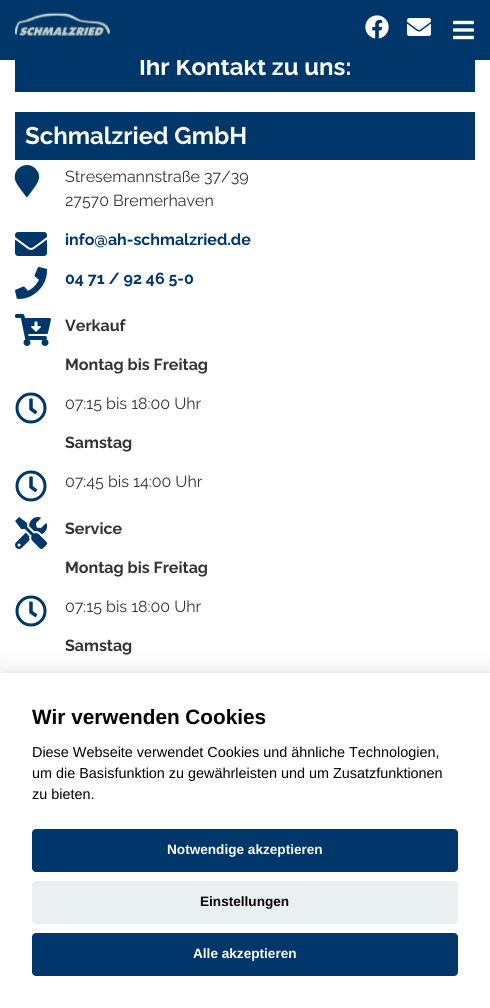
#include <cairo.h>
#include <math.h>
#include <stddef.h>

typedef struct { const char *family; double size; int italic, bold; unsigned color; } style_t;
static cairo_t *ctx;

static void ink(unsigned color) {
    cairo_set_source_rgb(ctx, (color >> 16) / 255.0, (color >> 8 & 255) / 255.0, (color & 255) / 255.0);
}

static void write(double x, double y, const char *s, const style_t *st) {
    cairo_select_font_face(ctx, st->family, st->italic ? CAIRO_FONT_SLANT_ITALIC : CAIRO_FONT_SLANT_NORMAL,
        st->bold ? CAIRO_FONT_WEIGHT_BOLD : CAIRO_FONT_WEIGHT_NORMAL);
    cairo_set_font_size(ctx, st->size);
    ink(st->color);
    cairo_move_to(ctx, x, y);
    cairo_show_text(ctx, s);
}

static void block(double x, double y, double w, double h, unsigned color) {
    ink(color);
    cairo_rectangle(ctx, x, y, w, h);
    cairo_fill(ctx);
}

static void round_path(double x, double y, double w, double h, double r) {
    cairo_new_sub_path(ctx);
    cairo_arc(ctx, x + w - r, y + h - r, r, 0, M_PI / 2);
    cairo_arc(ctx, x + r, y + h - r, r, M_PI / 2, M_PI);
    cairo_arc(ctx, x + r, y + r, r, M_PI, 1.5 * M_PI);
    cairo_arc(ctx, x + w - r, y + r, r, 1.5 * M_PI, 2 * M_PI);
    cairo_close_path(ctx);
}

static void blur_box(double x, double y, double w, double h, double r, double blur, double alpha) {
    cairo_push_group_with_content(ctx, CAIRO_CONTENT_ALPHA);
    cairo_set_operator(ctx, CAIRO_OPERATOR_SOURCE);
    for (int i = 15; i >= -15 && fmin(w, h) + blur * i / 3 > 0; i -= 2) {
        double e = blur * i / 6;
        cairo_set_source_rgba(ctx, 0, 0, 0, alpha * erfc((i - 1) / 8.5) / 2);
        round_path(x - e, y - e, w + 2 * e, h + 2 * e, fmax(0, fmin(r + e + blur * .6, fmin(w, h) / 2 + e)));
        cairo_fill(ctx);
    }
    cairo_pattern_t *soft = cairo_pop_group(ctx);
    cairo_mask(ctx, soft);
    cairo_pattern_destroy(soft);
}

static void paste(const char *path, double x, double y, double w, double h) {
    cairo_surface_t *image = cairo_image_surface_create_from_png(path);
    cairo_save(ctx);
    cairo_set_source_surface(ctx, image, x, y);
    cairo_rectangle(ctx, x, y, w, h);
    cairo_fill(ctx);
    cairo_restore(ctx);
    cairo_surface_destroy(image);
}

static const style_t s1 = {"Raleway", 24, 0, 1, 0xffffff};
static const style_t s2 = {"Raleway", 16, 0, 0, 0x333333};
static const style_t s3 = {"Raleway", 16, 0, 1, 0x00376b};
static const style_t s4 = {"Raleway", 16, 0, 1, 0x333333};
static const style_t s5 = {"Liberation Sans", 20.75, 0, 1, 0x000000};
static const style_t s6 = {"Liberation Sans", 14.4, 0, 0, 0x000000};
static const style_t s7 = {"Liberation Sans", 13.6, 0, 1, 0xffffff};
static const style_t s8 = {"Liberation Sans", 13.6, 0, 1, 0x000000};

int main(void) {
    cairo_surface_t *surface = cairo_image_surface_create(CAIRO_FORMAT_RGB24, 490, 1008);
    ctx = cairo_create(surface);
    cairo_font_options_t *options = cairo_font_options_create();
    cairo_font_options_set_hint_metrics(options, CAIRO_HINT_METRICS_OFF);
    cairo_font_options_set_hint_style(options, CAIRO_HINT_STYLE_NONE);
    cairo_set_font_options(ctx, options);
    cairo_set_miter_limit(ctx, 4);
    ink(0xffffff);
    cairo_paint(ctx);
    block(15, 60, 460, 32, 0x00376b);
    write(139, 75, "Ihr Kontakt zu uns:", &s1);
    block(0, 0, 490, 60, 0x00376b);
    paste("pic1.png", 15, 12, 95, 24);
    paste("pic2.png", 365, 15, 24, 24);
    paste("pic3.png", 407, 18, 24, 18);
    paste("pic4.png", 453, 20, 21, 20);
    block(15, 112, 460, 48, 0x00376b);
    write(25, 144, "Schmalzried GmbH", &s1);
    ink(0x00376b);
    cairo_new_path(ctx);
    cairo_move_to(ctx, 26, 196.5);
    cairo_curve_to(ctx, 23, 192.5, 16, 184, 15, 179.5);
    cairo_curve_to(ctx, 12.5, 166.5, 29.5, 159.5, 37, 170.5);
    cairo_curve_to(ctx, 42.5, 178.5, 36, 185, 31.5, 191.5);
    cairo_line_to(ctx, 27.5, 197);
    cairo_curve_to(ctx, 27, 197, 26, 197, 26, 196.5);
    cairo_close_path(ctx);
    cairo_fill(ctx);
    write(65, 182, "Stresemannstraße 37/39", &s2);
    write(65, 206, "27570 Bremerhaven", &s2);
    paste("pic5.png", 15, 232, 32, 24);
    write(65, 245, "info@ah-schmalzried.de", &s3);
    paste("pic6.png", 15, 267, 33, 32);
    write(65, 284, "04 71 / 92 46 5-0", &s3);
    paste("pic7.png", 15, 314, 36, 32);
    write(65, 331, "Verkauf", &s4);
    write(65, 370, "Montag bis Freitag", &s4);
    paste("pic8.png", 15, 392, 32, 32);
    write(65, 409, "07:15 bis 18:00 Uhr", &s2);
    write(65, 448, "Samstag", &s4);
    paste("pic8.png", 15, 470, 32, 32);
    write(65, 487, "07:45 bis 14:00 Uhr", &s2);
    paste("pic9.png", 15, 517, 33, 32);
    write(65, 534, "Service", &s4);
    write(65, 573, "Montag bis Freitag", &s4);
    paste("pic8.png", 15, 595, 32, 32);
    write(65, 612, "07:15 bis 18:00 Uhr", &s2);
    write(65, 651, "Samstag", &s4);
    ink(0x020203);
    blur_box(0, 683, 490, 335, 0, 15, 0.28);
    block(0, 673, 490, 335, 0xffffff);
    write(32, 724, "Wir verwenden Cookies", &s5);
    write(32, 757, "Diese Webseite verwendet Cookies und ähnliche Technologien,", &s6);
    write(32, 778, "um die Basisfunktion zu gewährleisten und um Zusatzfunktionen", &s6);
    write(32, 799, "zu bieten.", &s6);
    ink(0x00376b);
    round_path(32, 829, 426, 43, 4);
    cairo_fill(ctx);
    write(167, 854, "Notwendige akzeptieren", &s7);
    ink(0xeaeff2);
    round_path(32, 881, 426, 43, 4);
    cairo_fill(ctx);
    write(200, 906, "Einstellungen", &s8);
    ink(0x00376b);
    round_path(32, 933, 426, 43, 4);
    cairo_fill(ctx);
    write(193, 958, "Alle akzeptieren", &s7);
    cairo_surface_write_to_png(surface, "screenshot.png");
    cairo_font_options_destroy(options);
    cairo_destroy(ctx);
    cairo_surface_destroy(surface);
    return 0;
}
